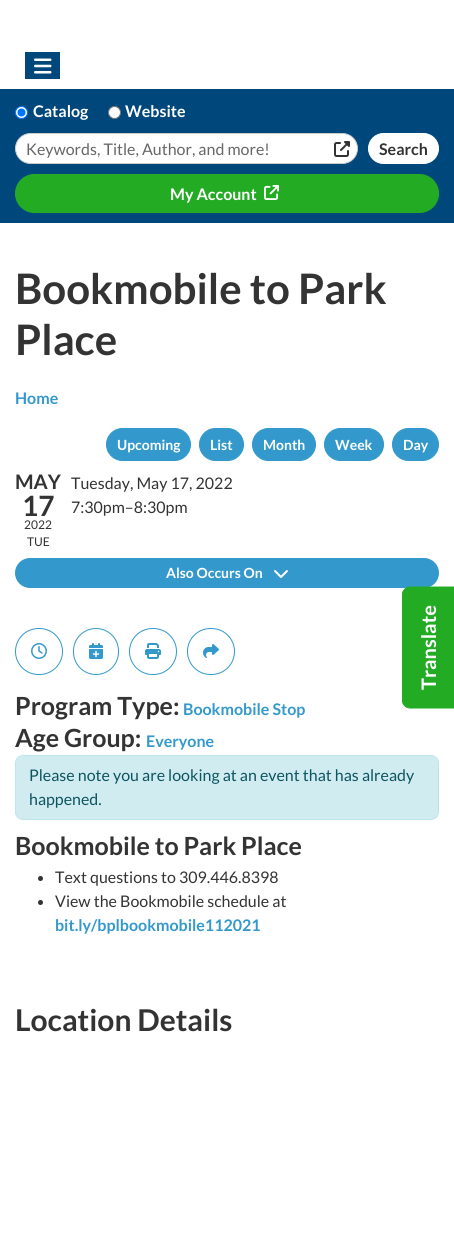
#include <cairo.h>
#include <math.h>
#include <stddef.h>

typedef struct { const char *family; double size; int italic, bold; unsigned color; } style_t;
static cairo_t *ctx;

static void ink(unsigned color) {
    cairo_set_source_rgb(ctx, (color >> 16) / 255.0, (color >> 8 & 255) / 255.0, (color & 255) / 255.0);
}

static void write(double x, double y, const char *s, const style_t *st) {
    cairo_select_font_face(ctx, st->family, st->italic ? CAIRO_FONT_SLANT_ITALIC : CAIRO_FONT_SLANT_NORMAL,
        st->bold ? CAIRO_FONT_WEIGHT_BOLD : CAIRO_FONT_WEIGHT_NORMAL);
    cairo_set_font_size(ctx, st->size);
    ink(st->color);
    cairo_move_to(ctx, x, y);
    cairo_show_text(ctx, s);
}

static void block(double x, double y, double w, double h, unsigned color) {
    ink(color);
    cairo_rectangle(ctx, x, y, w, h);
    cairo_fill(ctx);
}

static void round_path(double x, double y, double w, double h, double r) {
    cairo_new_sub_path(ctx);
    cairo_arc(ctx, x + w - r, y + h - r, r, 0, M_PI / 2);
    cairo_arc(ctx, x + r, y + h - r, r, M_PI / 2, M_PI);
    cairo_arc(ctx, x + r, y + r, r, M_PI, 1.5 * M_PI);
    cairo_arc(ctx, x + w - r, y + r, r, 1.5 * M_PI, 2 * M_PI);
    cairo_close_path(ctx);
}

static void paste(const char *path, double x, double y, double w, double h) {
    cairo_surface_t *image = cairo_image_surface_create_from_png(path);
    cairo_save(ctx);
    cairo_set_source_surface(ctx, image, x, y);
    cairo_rectangle(ctx, x, y, w, h);
    cairo_fill(ctx);
    cairo_restore(ctx);
    cairo_surface_destroy(image);
}

static const style_t s1 = {"Lato", 16, 0, 1, 0xffffff};
static const style_t s2 = {"Lato", 16, 0, 0, 0x666666};
static const style_t s3 = {"Lato", 16, 0, 1, 0x333333};
static const style_t s4 = {"Lato", 42, 0, 1, 0x333333};
static const style_t s5 = {"Lato", 16, 0, 1, 0x3399cc};
static const style_t s6 = {"Lato", 14, 0, 1, 0xffffff};
static const style_t s7 = {"Lato", 20, 0, 1, 0x333333};
static const style_t s8 = {"Lato", 28, 0, 1, 0x333333};
static const style_t s9 = {"Lato", 12, 0, 0, 0x333333};
static const style_t s10 = {"Lato", 16, 0, 0, 0x333333};
static const style_t s11 = {"Lato", 25, 0, 1, 0x333333};
static const style_t s12 = {"Lato", 16, 0, 0, 0x0c5460};
static const style_t s13 = {"Lato", 30, 0, 1, 0x333333};
static const style_t s14 = {"Lato", 20, 0, 1, 0xffffff};

int main(void) {
    cairo_surface_t *surface = cairo_image_surface_create(CAIRO_FORMAT_RGB24, 454, 1243);
    ctx = cairo_create(surface);
    cairo_font_options_t *options = cairo_font_options_create();
    cairo_font_options_set_hint_metrics(options, CAIRO_HINT_METRICS_OFF);
    cairo_font_options_set_hint_style(options, CAIRO_HINT_STYLE_NONE);
    cairo_set_font_options(ctx, options);
    cairo_set_miter_limit(ctx, 4);
    ink(0xffffff);
    cairo_paint(ctx);
    block(25, 52, 35, 27, 0x00487c);
    paste("pic1.png", 34, 58, 18, 16);
    block(0, 89, 454, 134, 0x00487c);
    ink(0xffffff);
    cairo_arc(ctx, 21.5, 112.5, 6, 0, 2 * M_PI);
    cairo_fill_preserve(ctx);
    ink(0x0075ff);
    cairo_set_line_width(ctx, 1);
    cairo_stroke(ctx);
    cairo_arc(ctx, 21.5, 112.5, 4, 0, 2 * M_PI);
    cairo_fill(ctx);
    write(33, 117, "Catalog", &s1);
    cairo_new_path(ctx);
    cairo_arc(ctx, 114.5, 112.5, 6, 0, 2 * M_PI);
    cairo_fill_preserve(ctx);
    ink(0x767676);
    cairo_stroke(ctx);
    write(125, 117, "Website", &s1);
    round_path(15.5, 133.5, 342, 30, 15);
    cairo_fill_preserve(ctx);
    ink(0xcccccc);
    cairo_stroke(ctx);
    write(26, 155, "Keywords, Title, Author, and more!", &s2);
    paste("pic2.png", 334, 141, 16, 16);
    ink(0xffffff);
    round_path(368.5, 133.5, 70, 30, 15);
    cairo_fill_preserve(ctx);
    cairo_stroke(ctx);
    write(379, 155, "Search", &s3);
    ink(0x23ac23);
    round_path(15.5, 174.5, 423, 38, 19);
    cairo_fill_preserve(ctx);
    cairo_stroke(ctx);
    write(170, 200, "My Account", &s1);
    paste("pic3.png", 264, 185, 15, 15);
    write(15, 304, "Bookmobile to Park", &s4);
    write(15, 355, "Place", &s4);
    write(15, 404, "Home", &s5);
    round_path(106.5, 428.5, 84, 32, 16);
    cairo_fill_preserve(ctx);
    cairo_stroke(ctx);
    write(117, 450, "Upcoming", &s6);
    ink(0x3399cc);
    round_path(199.5, 428.5, 44, 32, 16);
    cairo_fill_preserve(ctx);
    cairo_stroke(ctx);
    write(210, 450, "List", &s6);
    ink(0x3399cc);
    round_path(252.5, 428.5, 63, 32, 16);
    cairo_fill_preserve(ctx);
    cairo_stroke(ctx);
    write(263, 450, "Month", &s6);
    ink(0x3399cc);
    round_path(324.5, 428.5, 59, 32, 16);
    cairo_fill_preserve(ctx);
    cairo_stroke(ctx);
    write(335, 450, "Week", &s6);
    ink(0x3399cc);
    round_path(392.5, 428.5, 46, 32, 16);
    cairo_fill_preserve(ctx);
    cairo_stroke(ctx);
    write(403, 450, "Day", &s6);
    write(15, 489, "MAY", &s7);
    write(22, 516, "17", &s8);
    write(24, 529, "2022", &s9);
    write(27, 546, "TUE", &s9);
    write(71, 489, "Tuesday, May 17, 2022", &s10);
    write(71, 513, "7:30pm–8:30pm", &s10);
    ink(0x3399cc);
    round_path(15, 558, 424, 30, 15);
    cairo_fill(ctx);
    write(166, 578, "Also Occurs On", &s6);
    paste("pic4.png", 274, 570, 14, 8);
    round_path(15.5, 628.5, 47, 46, 23);
    ink(0x3399cc);
    cairo_stroke(ctx);
    paste("pic5.png", 31, 643, 16, 16);
    round_path(73.5, 628.5, 45, 46, 22.5);
    cairo_stroke(ctx);
    paste("pic6.png", 89, 643, 14, 16);
    round_path(129.5, 628.5, 47, 46, 23);
    cairo_stroke(ctx);
    paste("pic7.png", 145, 643, 16, 16);
    round_path(187.5, 628.5, 47, 46, 23);
    cairo_stroke(ctx);
    paste("pic8.png", 203, 644, 16, 14);
    write(15, 715, "Program Type:", &s11);
    write(183, 715, "Bookmobile Stop", &s5);
    write(15, 747, "Age Group:", &s11);
    write(146, 747, "Everyone", &s5);
    ink(0xd1ecf1);
    round_path(15.5, 755.5, 423, 64, 7.5);
    cairo_fill_preserve(ctx);
    ink(0xbee5eb);
    cairo_stroke(ctx);
    write(29, 781, "Please note you are looking at an event that has already", &s12);
    write(29, 805, "happened.", &s12);
    write(15, 855, "Bookmobile to Park Place", &s11);
    cairo_new_path(ctx);
    cairo_arc(ctx, 40.5, 878.5, 2.5, 0, 2 * M_PI);
    cairo_fill(ctx);
    write(55, 883, "Text questions to 309.446.8398", &s10);
    cairo_new_path(ctx);
    cairo_arc(ctx, 40.5, 902.5, 2.5, 0, 2 * M_PI);
    cairo_fill(ctx);
    write(55, 907, "View the Bookmobile schedule at", &s10);
    write(55, 931, "bit.ly/bplbookmobile112021", &s5);
    write(15, 1031, "Location Details", &s13);
    ink(0x23ac23);
    cairo_new_path(ctx);
    cairo_move_to(ctx, 402, 700);
    cairo_line_to(ctx, 402, 595);
    cairo_curve_to(ctx, 402, 590, 406, 587, 410, 587);
    cairo_line_to(ctx, 454, 587);
    cairo_line_to(ctx, 454, 708);
    cairo_line_to(ctx, 410, 708);
    cairo_curve_to(ctx, 406, 708, 402, 705, 402, 700);
    cairo_close_path(ctx);
    cairo_fill(ctx);
    cairo_new_path(ctx);
    cairo_move_to(ctx, 402.5, 700.5);
    cairo_line_to(ctx, 402.5, 594.5);
    cairo_curve_to(ctx, 402.5, 590.5, 406, 587, 410, 587);
    cairo_line_to(ctx, 453.5, 587);
    cairo_line_to(ctx, 453.5, 708);
    cairo_line_to(ctx, 410, 708);
    cairo_curve_to(ctx, 406, 708, 402.5, 704.5, 402.5, 700.5);
    cairo_close_path(ctx);
    cairo_stroke(ctx);
    cairo_save(ctx);
    cairo_translate(ctx, 436, 690);
    cairo_rotate(ctx, -90 * M_PI / 180);
    write(0, 0, "Translate", &s14);
    cairo_restore(ctx);
    cairo_surface_write_to_png(surface, "screenshot.png");
    cairo_font_options_destroy(options);
    cairo_destroy(ctx);
    cairo_surface_destroy(surface);
    return 0;
}
